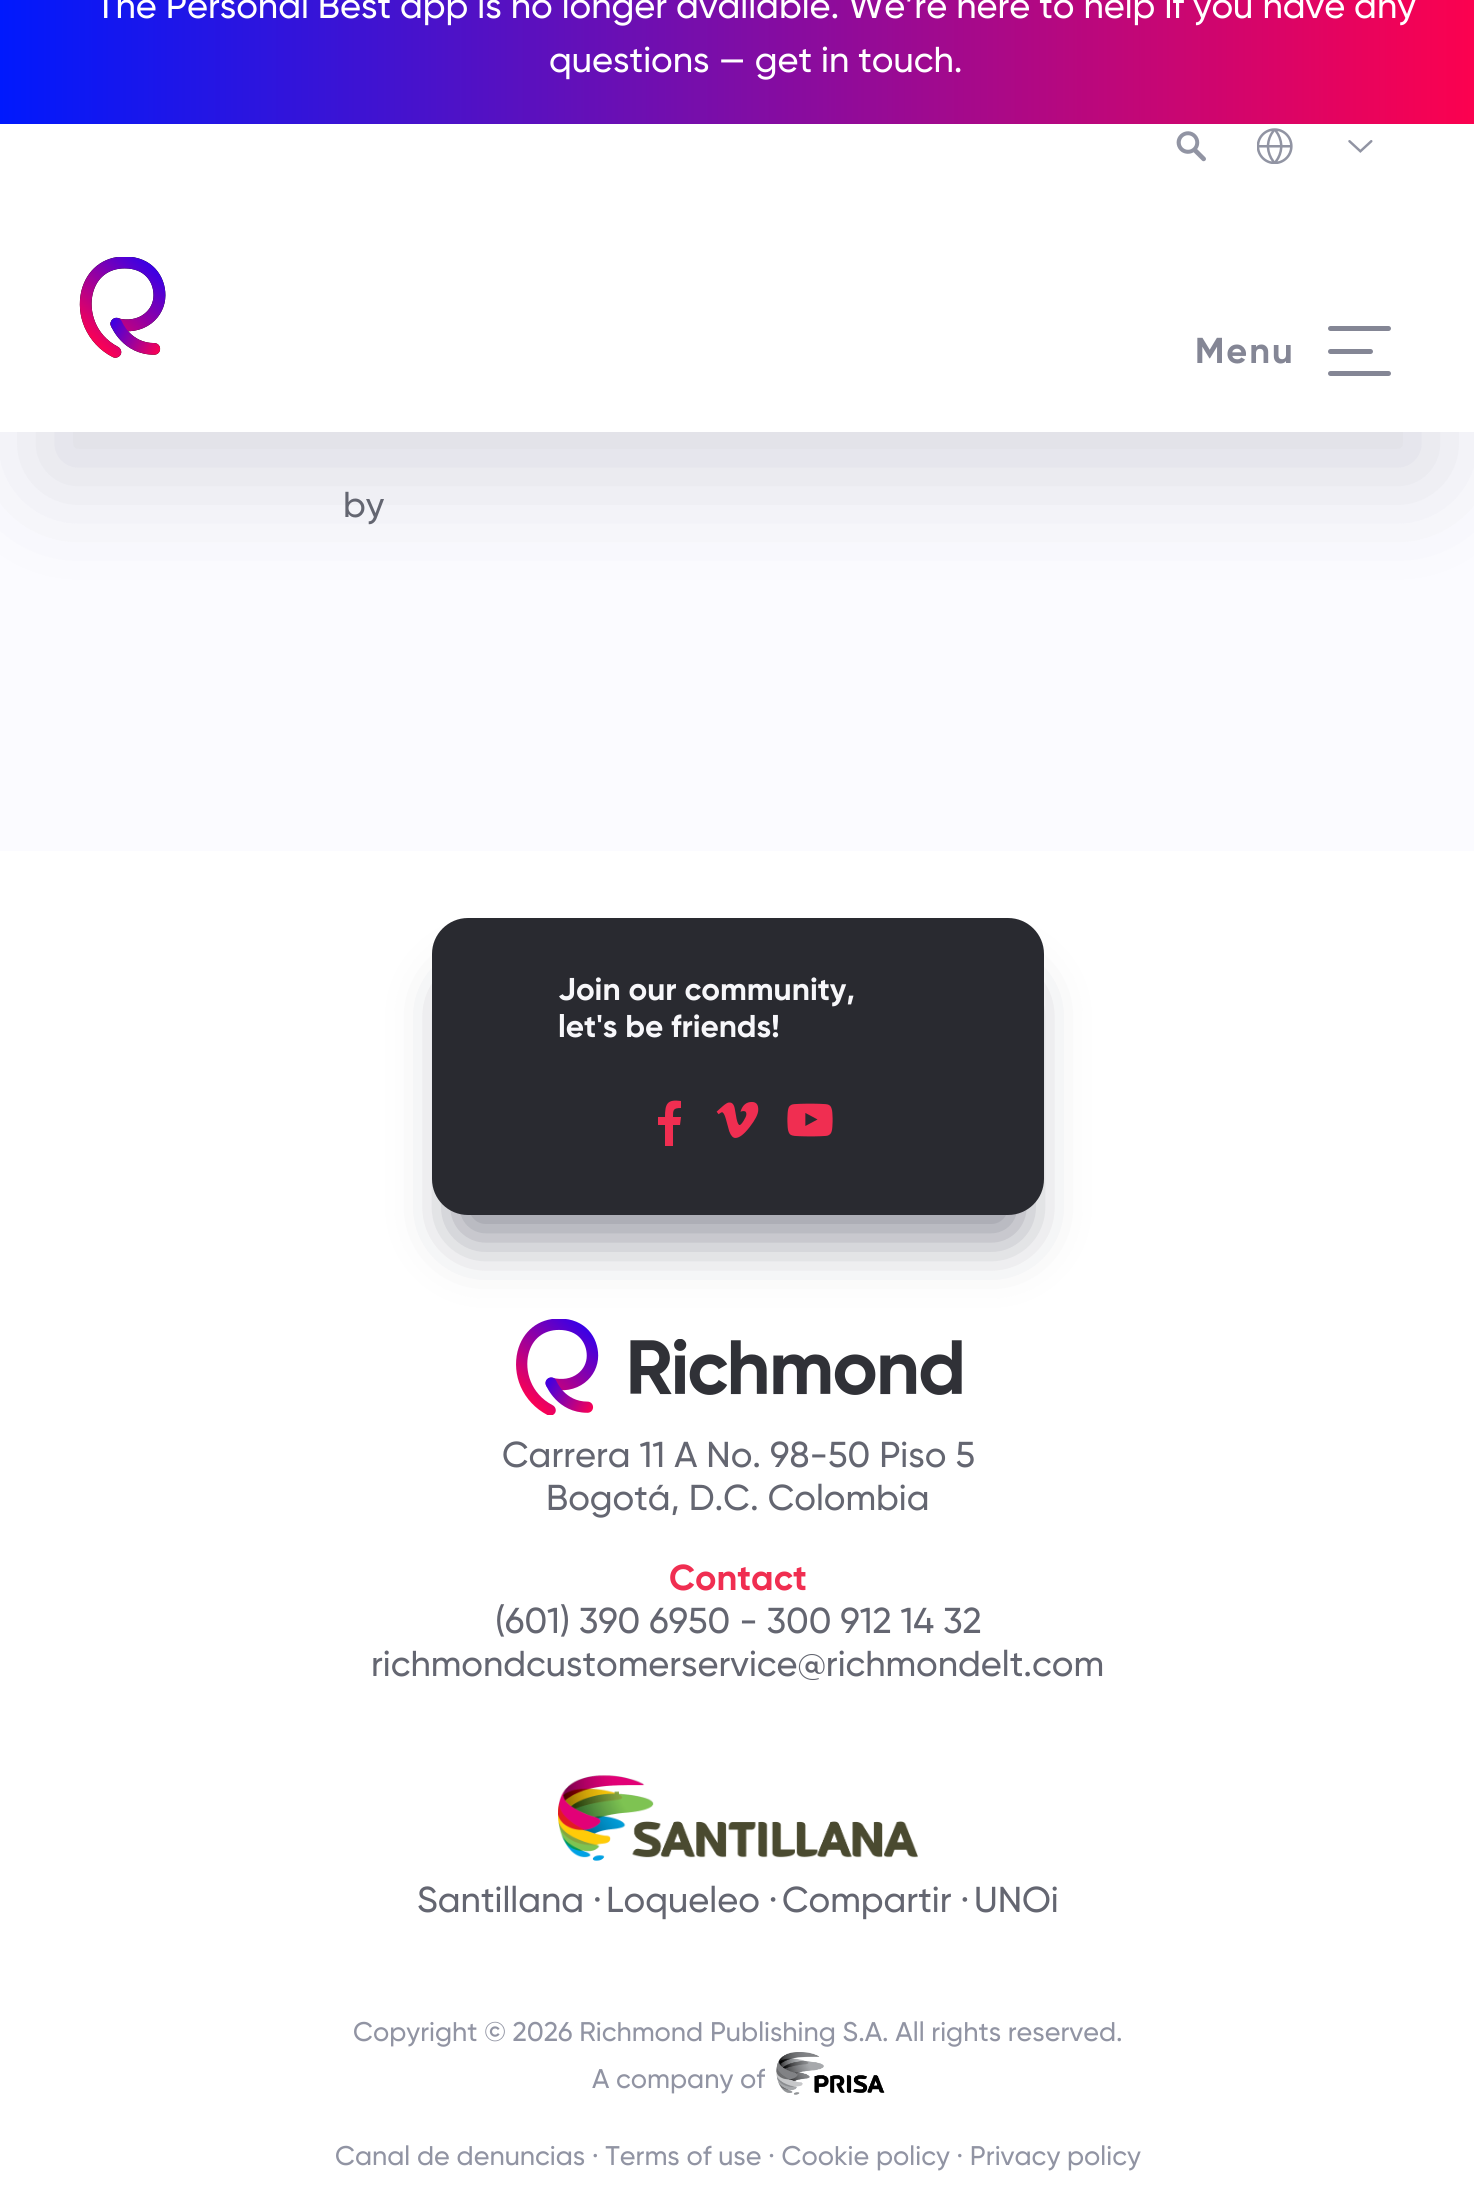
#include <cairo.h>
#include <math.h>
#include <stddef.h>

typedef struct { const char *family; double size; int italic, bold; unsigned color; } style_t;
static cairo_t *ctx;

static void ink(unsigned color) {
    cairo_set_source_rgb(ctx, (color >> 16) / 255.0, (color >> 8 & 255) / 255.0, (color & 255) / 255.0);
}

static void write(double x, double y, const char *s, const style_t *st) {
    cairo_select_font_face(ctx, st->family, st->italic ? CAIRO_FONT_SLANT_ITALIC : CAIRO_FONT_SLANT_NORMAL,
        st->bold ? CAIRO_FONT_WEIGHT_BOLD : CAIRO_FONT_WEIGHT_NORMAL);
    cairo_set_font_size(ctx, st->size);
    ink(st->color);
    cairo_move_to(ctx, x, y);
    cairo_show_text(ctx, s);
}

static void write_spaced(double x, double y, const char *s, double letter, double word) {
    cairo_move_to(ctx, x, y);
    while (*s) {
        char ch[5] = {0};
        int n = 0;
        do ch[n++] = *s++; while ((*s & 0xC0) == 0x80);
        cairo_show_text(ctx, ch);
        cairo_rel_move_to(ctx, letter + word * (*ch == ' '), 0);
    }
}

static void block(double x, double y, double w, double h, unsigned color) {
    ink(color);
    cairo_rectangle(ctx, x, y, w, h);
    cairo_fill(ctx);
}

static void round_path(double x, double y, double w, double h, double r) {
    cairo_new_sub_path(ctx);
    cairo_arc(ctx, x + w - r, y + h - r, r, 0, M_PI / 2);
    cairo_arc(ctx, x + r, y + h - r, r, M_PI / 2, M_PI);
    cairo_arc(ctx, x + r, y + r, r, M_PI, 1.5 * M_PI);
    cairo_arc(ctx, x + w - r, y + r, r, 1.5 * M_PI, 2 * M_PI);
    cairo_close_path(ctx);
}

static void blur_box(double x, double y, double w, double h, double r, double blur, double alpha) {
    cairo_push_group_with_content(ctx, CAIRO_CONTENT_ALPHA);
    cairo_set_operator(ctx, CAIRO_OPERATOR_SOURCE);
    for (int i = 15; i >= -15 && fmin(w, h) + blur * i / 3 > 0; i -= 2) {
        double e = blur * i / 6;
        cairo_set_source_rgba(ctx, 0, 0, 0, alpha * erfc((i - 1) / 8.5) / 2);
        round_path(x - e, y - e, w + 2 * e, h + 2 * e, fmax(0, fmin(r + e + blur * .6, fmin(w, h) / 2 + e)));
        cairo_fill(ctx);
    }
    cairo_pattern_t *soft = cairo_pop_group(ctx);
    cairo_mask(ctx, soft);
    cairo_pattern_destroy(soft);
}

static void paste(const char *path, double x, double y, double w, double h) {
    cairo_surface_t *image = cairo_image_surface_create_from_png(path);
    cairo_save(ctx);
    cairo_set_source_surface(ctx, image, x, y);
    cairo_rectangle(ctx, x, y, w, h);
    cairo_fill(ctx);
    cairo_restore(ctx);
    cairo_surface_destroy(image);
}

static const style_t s1 = {"Gilroy Medium", 36, 0, 0, 0xffffff};
static const style_t s2 = {"Gilroy Medium", 36, 0, 0, 0x646671};
static const style_t s3 = {"Gilroy", 31.5, 0, 1, 0xf7f7fa};
static const style_t s4 = {"Gilroy", 36, 0, 1, 0xf02e51};
static const style_t s5 = {"Gilroy Medium", 27, 0, 0, 0x9194a3};

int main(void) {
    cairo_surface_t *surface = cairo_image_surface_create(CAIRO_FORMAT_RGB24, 1474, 2211);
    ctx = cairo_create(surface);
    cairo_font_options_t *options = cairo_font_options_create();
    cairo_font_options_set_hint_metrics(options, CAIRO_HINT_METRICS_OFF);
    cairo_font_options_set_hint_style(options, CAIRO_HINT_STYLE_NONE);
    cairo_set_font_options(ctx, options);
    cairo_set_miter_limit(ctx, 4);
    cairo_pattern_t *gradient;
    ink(0xffffff);
    cairo_paint(ctx);
    block(0, 432, 1474, 419, 0xfbfbff);
    ink(0x22253b);
    blur_box(45, 135, 1386, 342, 0, 56, 0.15);
    block(0, 124, 1474, 308, 0xffffff);
    gradient = cairo_pattern_create_linear(0, 18, 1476, 18);
    cairo_pattern_add_color_stop_rgba(gradient, 0, 0, 0.098, 0.992, 1);
    cairo_pattern_add_color_stop_rgba(gradient, 1, 0.988, 0.004, 0.31, 1);
    cairo_set_source(ctx, gradient);
    cairo_pattern_destroy(gradient);
    cairo_rectangle(ctx, 0, 0, 1474, 124);
    cairo_fill(ctx);
    write(96, 18, "The Personal Best app is no longer available. We’re here to help if you have any", &s1);
    write(549, 72, "questions — get in touch.", &s1);
    paste("pic1.png", 1176, 131, 30, 31);
    paste("pic2.png", 1257, 128, 36, 36);
    paste("pic3.png", 1348, 140, 25, 13);
    paste("pic4.png", 79, 257, 87, 101);
    cairo_select_font_face(ctx, "Gilroy", CAIRO_FONT_SLANT_NORMAL, CAIRO_FONT_WEIGHT_BOLD);
    ink(0x848695);
    write_spaced(1195, 363, "Menu", 2, 0);
    round_path(1328, 326, 63, 5, 2.5);
    cairo_fill(ctx);
    round_path(1328, 349, 45, 5, 2.5);
    cairo_fill(ctx);
    round_path(1328, 371, 63, 5, 2.5);
    cairo_fill(ctx);
    write(343, 517, "by", &s2);
    paste("pic7.png", 516, 1319, 83, 96);
    ink(0x22253b);
    blur_box(455, 986, 567, 252, 14, 28, 0.5);
    ink(0x292a30);
    round_path(432, 918, 612, 297, 36);
    cairo_fill(ctx);
    write(558, 1000, "Join our community,", &s3);
    write(558, 1037, "let's be friends!", &s3);
    ink(0xf02e51);
    cairo_new_path(ctx);
    cairo_move_to(ctx, 680, 1125);
    cairo_line_to(ctx, 681, 1117);
    cairo_line_to(ctx, 673, 1117);
    cairo_curve_to(ctx, 673, 1110, 673, 1108, 681, 1108);
    cairo_line_to(ctx, 681, 1101);
    cairo_curve_to(ctx, 667, 1099, 665, 1104, 665, 1117);
    cairo_line_to(ctx, 658, 1117);
    cairo_line_to(ctx, 658, 1125);
    cairo_line_to(ctx, 665, 1125);
    cairo_line_to(ctx, 665, 1146);
    cairo_line_to(ctx, 673, 1146);
    cairo_line_to(ctx, 673, 1125);
    cairo_close_path(ctx);
    cairo_fill(ctx);
    paste("pic5.png", 716, 1102, 43, 36);
    paste("pic6.png", 787, 1103, 46, 34);
    paste("pic8.png", 630, 1339, 332, 56);
    write(502, 1467, "Carrera 11 A No. 98-50 Piso 5", &s2);
    write(546, 1510, "Bogotá, D.C. Colombia", &s2);
    write(669, 1590, "Contact", &s4);
    write(495, 1633, "(601) 390 6950 - 300 912 14 32", &s2);
    write(371, 1676, "richmondcustomerservice@richmondelt.com", &s2);
    paste("pic9.png", 558, 1775, 360, 86);
    write(417, 1912, "Santillana ·", &s2);
    write(606, 1912, "Loqueleo ·", &s2);
    write(782, 1912, "Compartir ·", &s2);
    write(974, 1912, "UNOi", &s2);
    write(353, 2041, "Copyright © 2026 Richmond Publishing S.A. All rights reserved.", &s5);
    write(592, 2088, "A company of", &s5);
    paste("pic10.png", 776, 2052, 109, 43);
    write(335, 2165, "Canal de denuncias · Terms of use · Cookie policy · Privacy policy", &s5);
    cairo_surface_write_to_png(surface, "screenshot.png");
    cairo_font_options_destroy(options);
    cairo_destroy(ctx);
    cairo_surface_destroy(surface);
    return 0;
}
